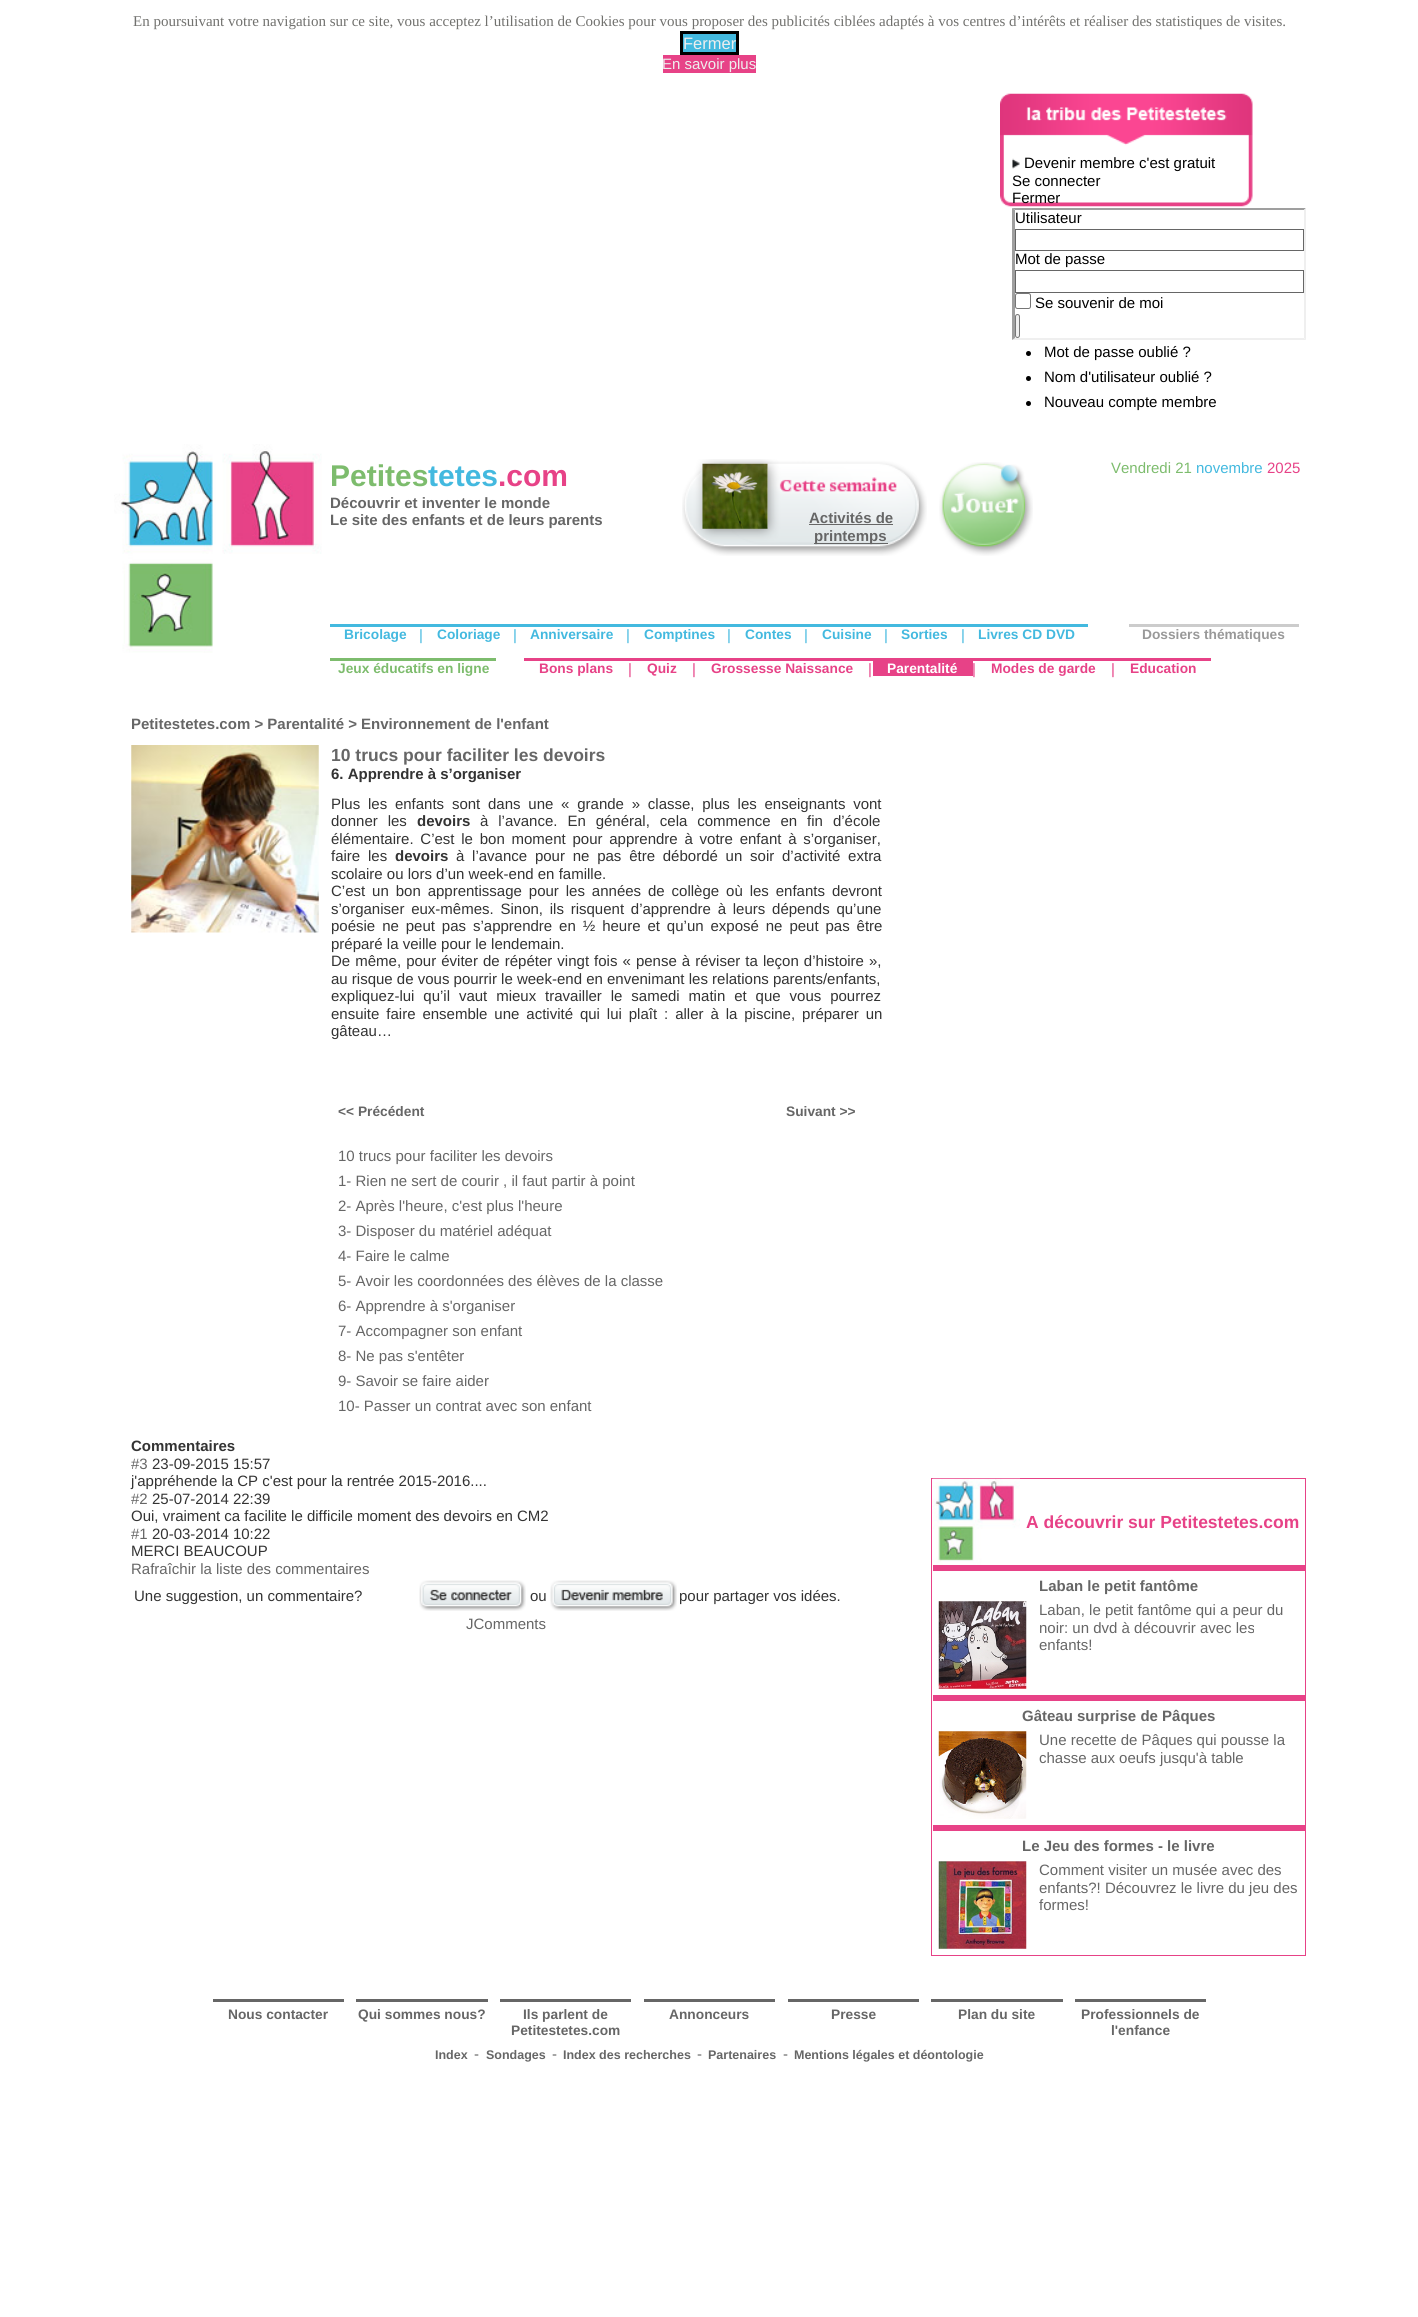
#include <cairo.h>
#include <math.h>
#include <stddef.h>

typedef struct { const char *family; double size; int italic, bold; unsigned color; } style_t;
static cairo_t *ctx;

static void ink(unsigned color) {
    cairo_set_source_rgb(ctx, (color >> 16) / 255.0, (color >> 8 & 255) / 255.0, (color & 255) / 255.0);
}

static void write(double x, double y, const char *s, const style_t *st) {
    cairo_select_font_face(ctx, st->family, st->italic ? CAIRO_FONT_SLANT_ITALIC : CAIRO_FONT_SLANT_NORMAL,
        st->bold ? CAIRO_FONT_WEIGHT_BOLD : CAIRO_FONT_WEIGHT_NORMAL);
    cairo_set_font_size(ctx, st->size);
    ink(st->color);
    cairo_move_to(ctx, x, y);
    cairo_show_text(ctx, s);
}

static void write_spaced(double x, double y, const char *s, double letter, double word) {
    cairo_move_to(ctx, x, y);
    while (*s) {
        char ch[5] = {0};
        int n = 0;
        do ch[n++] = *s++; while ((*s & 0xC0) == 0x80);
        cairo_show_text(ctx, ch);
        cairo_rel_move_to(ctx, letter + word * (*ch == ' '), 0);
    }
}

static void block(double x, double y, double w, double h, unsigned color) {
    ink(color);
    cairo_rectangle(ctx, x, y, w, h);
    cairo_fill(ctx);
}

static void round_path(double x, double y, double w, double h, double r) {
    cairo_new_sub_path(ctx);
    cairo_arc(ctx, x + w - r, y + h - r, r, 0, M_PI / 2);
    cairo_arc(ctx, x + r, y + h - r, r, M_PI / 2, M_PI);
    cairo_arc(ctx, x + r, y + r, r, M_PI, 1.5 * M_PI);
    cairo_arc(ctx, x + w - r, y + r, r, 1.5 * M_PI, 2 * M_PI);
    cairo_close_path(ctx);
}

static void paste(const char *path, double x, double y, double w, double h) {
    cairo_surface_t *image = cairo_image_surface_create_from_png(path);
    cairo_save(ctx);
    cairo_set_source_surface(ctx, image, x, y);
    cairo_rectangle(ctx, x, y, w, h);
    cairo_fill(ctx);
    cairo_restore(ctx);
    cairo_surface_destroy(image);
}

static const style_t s1 = {"Liberation Serif", 15, 0, 0, 0x71716e};
static const style_t s2 = {"Liberation Sans", 16.5, 0, 0, 0xeeeeee};
static const style_t s3 = {"Liberation Sans", 15, 0, 0, 0xeeeeee};
static const style_t s4 = {"Liberation Sans", 15, 0, 0, 0x000000};
static const style_t s5 = {"Liberation Sans", 30, 0, 1, 0x7dbc6d};
static const style_t s6 = {"Liberation Sans", 30, 0, 1, 0x43b9df};
static const style_t s7 = {"Liberation Sans", 30, 0, 1, 0xe74287};
static const style_t s8 = {"Liberation Sans", 15, 0, 1, 0x666666};
static const style_t s9 = {"Liberation Sans", 15, 0, 0, 0x7dbc6d};
static const style_t s10 = {"Liberation Sans", 15, 0, 0, 0x43b9df};
static const style_t s11 = {"Liberation Sans", 15, 0, 0, 0xe74287};
static const style_t s12 = {"Liberation Sans", 13.75, 0, 1, 0x43b9df};
static const style_t s13 = {"Liberation Sans", 13.75, 0, 1, 0x999999};
static const style_t s14 = {"Liberation Sans", 13.75, 0, 1, 0x7dbc6d};
static const style_t s15 = {"Liberation Sans", 13.75, 0, 1, 0xe74287};
static const style_t s16 = {"Liberation Sans", 13.75, 0, 1, 0xffffff};
static const style_t s17 = {"Liberation Sans", 17.5, 0, 1, 0x666666};
static const style_t s18 = {"Liberation Sans", 15, 0, 1, 0x333333};
static const style_t s19 = {"Liberation Sans", 15, 0, 0, 0x333333};
static const style_t s20 = {"Liberation Sans", 13.75, 0, 1, 0x666666};
static const style_t s21 = {"Liberation Sans", 15, 0, 0, 0x666666};
static const style_t s22 = {"Liberation Sans", 17.5, 0, 1, 0xe74287};
static const style_t s23 = {"Liberation Sans", 12.5, 0, 1, 0x666666};

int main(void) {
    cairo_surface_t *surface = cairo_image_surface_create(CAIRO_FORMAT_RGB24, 1418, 2317);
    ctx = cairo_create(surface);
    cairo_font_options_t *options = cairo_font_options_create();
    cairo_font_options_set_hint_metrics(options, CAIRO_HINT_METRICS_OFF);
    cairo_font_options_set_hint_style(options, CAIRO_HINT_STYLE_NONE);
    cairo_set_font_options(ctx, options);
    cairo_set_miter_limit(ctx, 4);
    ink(0xffffff);
    cairo_paint(ctx);
    write(133, 26, "En poursuivant votre navigation sur ce site, vous acceptez l’utilisation de Cookies pour vous proposer des publicités ciblées adaptés à vos centres d’intérêts et réaliser des statistiques de visites.", &s1);
    ink(0x43b9df);
    cairo_rectangle(ctx, 681.5, 32.5, 56, 21);
    cairo_fill_preserve(ctx);
    ink(0x000000);
    cairo_set_line_width(ctx, 3);
    cairo_stroke(ctx);
    write(683, 49, "Fermer", &s2);
    block(663, 55, 93, 18, 0xe74287);
    write(662, 69, "En savoir plus", &s3);
    paste("pic1.png", 1000, 93, 253, 114);
    paste("pic2.png", 1012, 158, 8, 11);
    write(1024, 168, "Devenir membre c'est gratuit", &s4);
    write(1012, 186, "Se connecter", &s4);
    write(1012, 203, "Fermer", &s4);
    ink(0x9f9f9f);
    cairo_new_path(ctx);
    cairo_move_to(ctx, 1012, 208);
    cairo_line_to(ctx, 1306, 208);
    cairo_line_to(ctx, 1304, 210);
    cairo_line_to(ctx, 1015, 210);
    cairo_close_path(ctx);
    cairo_fill(ctx);
    ink(0xefefef);
    cairo_new_path(ctx);
    cairo_move_to(ctx, 1306, 208);
    cairo_line_to(ctx, 1306, 340);
    cairo_line_to(ctx, 1304, 338);
    cairo_line_to(ctx, 1304, 210);
    cairo_close_path(ctx);
    cairo_fill(ctx);
    cairo_new_path(ctx);
    cairo_move_to(ctx, 1306, 340);
    cairo_line_to(ctx, 1012, 340);
    cairo_line_to(ctx, 1015, 338);
    cairo_line_to(ctx, 1304, 338);
    cairo_close_path(ctx);
    cairo_fill(ctx);
    ink(0x9f9f9f);
    cairo_new_path(ctx);
    cairo_move_to(ctx, 1012, 340);
    cairo_line_to(ctx, 1012, 208);
    cairo_line_to(ctx, 1015, 210);
    cairo_line_to(ctx, 1015, 338);
    cairo_close_path(ctx);
    cairo_fill(ctx);
    write(1015, 223, "Utilisateur", &s4);
    cairo_rectangle(ctx, 1015.5, 229.5, 288, 21);
    ink(0x666666);
    cairo_set_line_width(ctx, 1);
    cairo_stroke(ctx);
    write(1015, 264, "Mot de passe", &s4);
    cairo_rectangle(ctx, 1015.5, 270.5, 288, 22);
    ink(0x666666);
    cairo_stroke(ctx);
    round_path(1015.5, 293.5, 15, 15, 2);
    ink(0x767676);
    cairo_stroke(ctx);
    write(1035, 308, "Se souvenir de moi", &s4);
    ink(0xefefef);
    round_path(1015.5, 314.5, 4, 23, 2);
    cairo_fill_preserve(ctx);
    ink(0x767676);
    cairo_stroke(ctx);
    ink(0x000000);
    cairo_arc(ctx, 1028.5, 353.5, 2.5, 0, 2 * M_PI);
    cairo_fill(ctx);
    write(1044, 357, "Mot de passe oublié ?", &s4);
    cairo_new_path(ctx);
    cairo_arc(ctx, 1028.5, 378.5, 2.5, 0, 2 * M_PI);
    cairo_fill(ctx);
    write(1044, 382, "Nom d'utilisateur oublié ?", &s4);
    cairo_new_path(ctx);
    cairo_arc(ctx, 1028.5, 403.5, 2.5, 0, 2 * M_PI);
    cairo_fill(ctx);
    write(1044, 407, "Nouveau compte membre", &s4);
    paste("pic3.png", 114, 444, 208, 209);
    write(330, 486, "Petites", &s5);
    write(428, 486, "tetes", &s6);
    write(498, 486, ".com", &s7);
    write(330, 508, "Découvrir et inventer le monde", &s8);
    write(330, 525, "Le site des enfants et de leurs parents", &s8);
    paste("pic4.png", 682, 459, 245, 97);
    paste("pic5.png", 702, 463, 66, 66);
    write(809, 523, "Activités de", &s8);
    block(809, 524, 84, 1, 0x666666);
    block(814, 543, 74, 1, 0x666666);
    write(814, 541, "printemps", &s8);
    paste("pic6.png", 939, 462, 94, 94);
    write(1111, 473, "Vendredi 21", &s9);
    write(1196, 473, "novembre", &s10);
    write(1267, 473, "2025", &s11);
    write(344, 639, "Bricolage", &s12);
    block(330, 624, 758, 3, 0x43b9df);
    write(419, 640, "|", &s10);
    write(437, 639, "Coloriage", &s12);
    write(513, 640, "|", &s10);
    write(530, 639, "Anniversaire", &s12);
    write(626, 640, "|", &s10);
    write(644, 639, "Comptines", &s12);
    write(727, 640, "|", &s10);
    write(745, 639, "Contes", &s12);
    write(804, 640, "|", &s10);
    write(822, 639, "Cuisine", &s12);
    write(884, 640, "|", &s10);
    write(901, 639, "Sorties", &s12);
    write(961, 640, "|", &s10);
    write(978, 639, "Livres CD DVD", &s12);
    write(1142, 639, "Dossiers thématiques", &s13);
    block(1129, 624, 170, 3, 0xcccccc);
    write(338, 673, "Jeux éducatifs en ligne", &s14);
    block(330, 658, 166, 3, 0x7dbc6d);
    write(539, 673, "Bons plans", &s15);
    block(524, 658, 349, 3, 0xe74287);
    write(628, 674, "|", &s11);
    write(647, 673, "Quiz", &s15);
    write(692, 674, "|", &s11);
    write(711, 673, "Grossesse Naissance", &s15);
    write(868, 674, "|", &s11);
    block(873, 658, 100, 18, 0xe74287);
    write(887, 673, "Parentalité", &s16);
    write(972, 674, "|", &s11);
    block(973, 658, 238, 3, 0xe74287);
    write(991, 673, "Modes de garde", &s15);
    write(1111, 674, "|", &s11);
    write(1130, 673, "Education", &s15);
    write(131, 729, "Petitestetes.com > Parentalité > Environnement de l'enfant", &s8);
    paste("pic7.png", 131, 745, 188, 188);
    write(331, 761, "10 trucs pour faciliter les devoirs", &s17);
    write(331, 779, "6. Apprendre à s’organiser", &s18);
    cairo_select_font_face(ctx, "Liberation Sans", CAIRO_FONT_SLANT_NORMAL, CAIRO_FONT_WEIGHT_NORMAL);
    write_spaced(331, 809, "Plus les enfants sont dans une « grande » classe, plus les enseignants vont", 0, 3.6);
    write_spaced(331, 826, "donner les", 0, 5.75);
    write(417, 826, "devoirs", &s18);
    cairo_select_font_face(ctx, "Liberation Sans", CAIRO_FONT_SLANT_NORMAL, CAIRO_FONT_WEIGHT_NORMAL);
    write_spaced(480, 826, "à l’avance. En général, cela commence en fin d’école", 0, 5.75);
    write_spaced(331, 844, "élémentaire. C’est le bon moment pour apprendre à votre enfant à s’organiser,", 0, 2.6);
    write_spaced(331, 861, "faire les", 0, 3.6);
    write(395, 861, "devoirs", &s18);
    cairo_select_font_face(ctx, "Liberation Sans", CAIRO_FONT_SLANT_NORMAL, CAIRO_FONT_WEIGHT_NORMAL);
    write_spaced(456, 861, "à l’avance pour ne pas être débordé un soir d’activité extra", 0, 3.6);
    write(331, 879, "scolaire ou lors d’un week-end en famille.", &s19);
    write_spaced(331, 896, "C’est un bon apprentissage pour les années de collège où les enfants devront", 0, 2.75);
    write_spaced(331, 914, "s’organiser eux-mêmes. Sinon, ils risquent d’apprendre à leurs dépends qu’une", 0, 2.6);
    write_spaced(331, 931, "poésie ne peut pas s’apprendre en ½ heure et qu’un exposé ne peut pas être", 0, 2.75);
    write(331, 949, "préparé la veille pour le lendemain.", &s19);
    write_spaced(331, 966, "De même, pour éviter de répéter vingt fois « pense à réviser ta leçon d’histoire »,", 0, 0.9);
    write(331, 984, "au risque de vous pourrir le week-end en envenimant les relations parents/enfants,", &s19);
    write_spaced(331, 1001, "expliquez-lui qu’il vaut mieux travailler le samedi matin et que vous pourrez", 0, 4.75);
    write_spaced(331, 1019, "ensuite faire ensemble une activité qui lui plaît : aller à la piscine, préparer un", 0, 2.75);
    write(331, 1036, "gâteau…", &s19);
    write(338, 1116, "<< Précédent", &s20);
    write(786, 1116, "Suivant >>", &s20);
    write(338, 1161, "10 trucs pour faciliter les devoirs", &s21);
    write(338, 1186, "1- Rien ne sert de courir , il faut partir à point", &s21);
    write(338, 1211, "2- Après l'heure, c'est plus l'heure", &s21);
    write(338, 1236, "3- Disposer du matériel adéquat", &s21);
    write(338, 1261, "4- Faire le calme", &s21);
    write(338, 1286, "5- Avoir les coordonnées des élèves de la classe", &s21);
    write(338, 1311, "6- Apprendre à s'organiser", &s21);
    write(338, 1336, "7- Accompagner son enfant", &s21);
    write(338, 1361, "8- Ne pas s'entêter", &s21);
    write(338, 1386, "9- Savoir se faire aider", &s21);
    write(338, 1411, "10- Passer un contrat avec son enfant", &s21);
    write(131, 1451, "Commentaires", &s18);
    write(131, 1469, "#3", &s21);
    write(152, 1469, "23-09-2015 15:57", &s19);
    write(131, 1486, "j'appréhende la CP c'est pour la rentrée 2015-2016....", &s19);
    write(131, 1504, "#2", &s21);
    write(152, 1504, "25-07-2014 22:39", &s19);
    write(131, 1521, "Oui, vraiment ca facilite le difficile moment des devoirs en CM2", &s19);
    write(131, 1539, "#1", &s21);
    write(152, 1539, "20-03-2014 10:22", &s19);
    write(131, 1556, "MERCI BEAUCOUP", &s19);
    write(131, 1574, "Rafraîchir la liste des commentaires", &s21);
    write(134, 1601, "Une suggestion, un commentaire?", &s19);
    paste("pic8.png", 419, 1580, 107, 31);
    write(530, 1601, "ou", &s19);
    paste("pic9.png", 550, 1580, 127, 31);
    write(679, 1601, "pour partager vos idées.", &s19);
    write(466, 1629, "JComments", &s21);
    cairo_rectangle(ctx, 931.5, 1478.5, 374, 477);
    ink(0xe74287);
    cairo_stroke(ctx);
    paste("pic10.png", 932, 1478, 88, 87);
    write(1026, 1528, "A découvrir sur Petitestetes.com", &s22);
    block(933, 1565, 372, 6, 0xe74287);
    write(1039, 1591, "Laban le petit fantôme", &s8);
    paste("pic11.png", 938, 1601, 89, 88);
    write(1039, 1615, "Laban, le petit fantôme qui a peur du", &s21);
    write(1039, 1633, "noir: un dvd à découvrir avec les", &s21);
    write(1039, 1650, "enfants!", &s21);
    block(933, 1695, 372, 6, 0xe74287);
    write(1022, 1721, "Gâteau surprise de Pâques", &s8);
    paste("pic12.png", 938, 1731, 89, 88);
    write(1039, 1745, "Une recette de Pâques qui pousse la", &s21);
    write(1039, 1763, "chasse aux oeufs jusqu'à table", &s21);
    block(933, 1825, 372, 6, 0xe74287);
    write(1022, 1851, "Le Jeu des formes - le livre", &s8);
    paste("pic13.png", 938, 1861, 89, 88);
    write(1039, 1875, "Comment visiter un musée avec des", &s21);
    write(1039, 1893, "enfants?! Découvrez le livre du jeu des", &s21);
    write(1039, 1910, "formes!", &s21);
    block(213, 1999, 131, 3, 0x666666);
    write(228, 2019, "Nous contacter", &s20);
    block(356, 1999, 132, 3, 0x666666);
    write(358, 2019, "Qui sommes nous?", &s20);
    block(500, 1999, 131, 3, 0x666666);
    write(523, 2019, "Ils parlent de", &s20);
    write(511, 2035, "Petitestetes.com", &s20);
    block(644, 1999, 131, 3, 0x666666);
    write(669, 2019, "Annonceurs", &s20);
    block(788, 1999, 131, 3, 0x666666);
    write(831, 2019, "Presse", &s20);
    block(931, 1999, 132, 3, 0x666666);
    write(958, 2019, "Plan du site", &s20);
    block(1075, 1999, 131, 3, 0x666666);
    write(1081, 2019, "Professionnels de", &s20);
    write(1111, 2035, "l'enfance", &s20);
    write(435, 2059, "Index", &s23);
    write(474, 2059, "-", &s21);
    write(486, 2059, "Sondages", &s23);
    write(552, 2059, "-", &s21);
    write(563, 2059, "Index des recherches", &s23);
    write(697, 2059, "-", &s21);
    write(708, 2059, "Partenaires", &s23);
    write(783, 2059, "-", &s21);
    write(794, 2059, "Mentions légales et déontologie", &s23);
    cairo_surface_write_to_png(surface, "screenshot.png");
    cairo_font_options_destroy(options);
    cairo_destroy(ctx);
    cairo_surface_destroy(surface);
    return 0;
}
